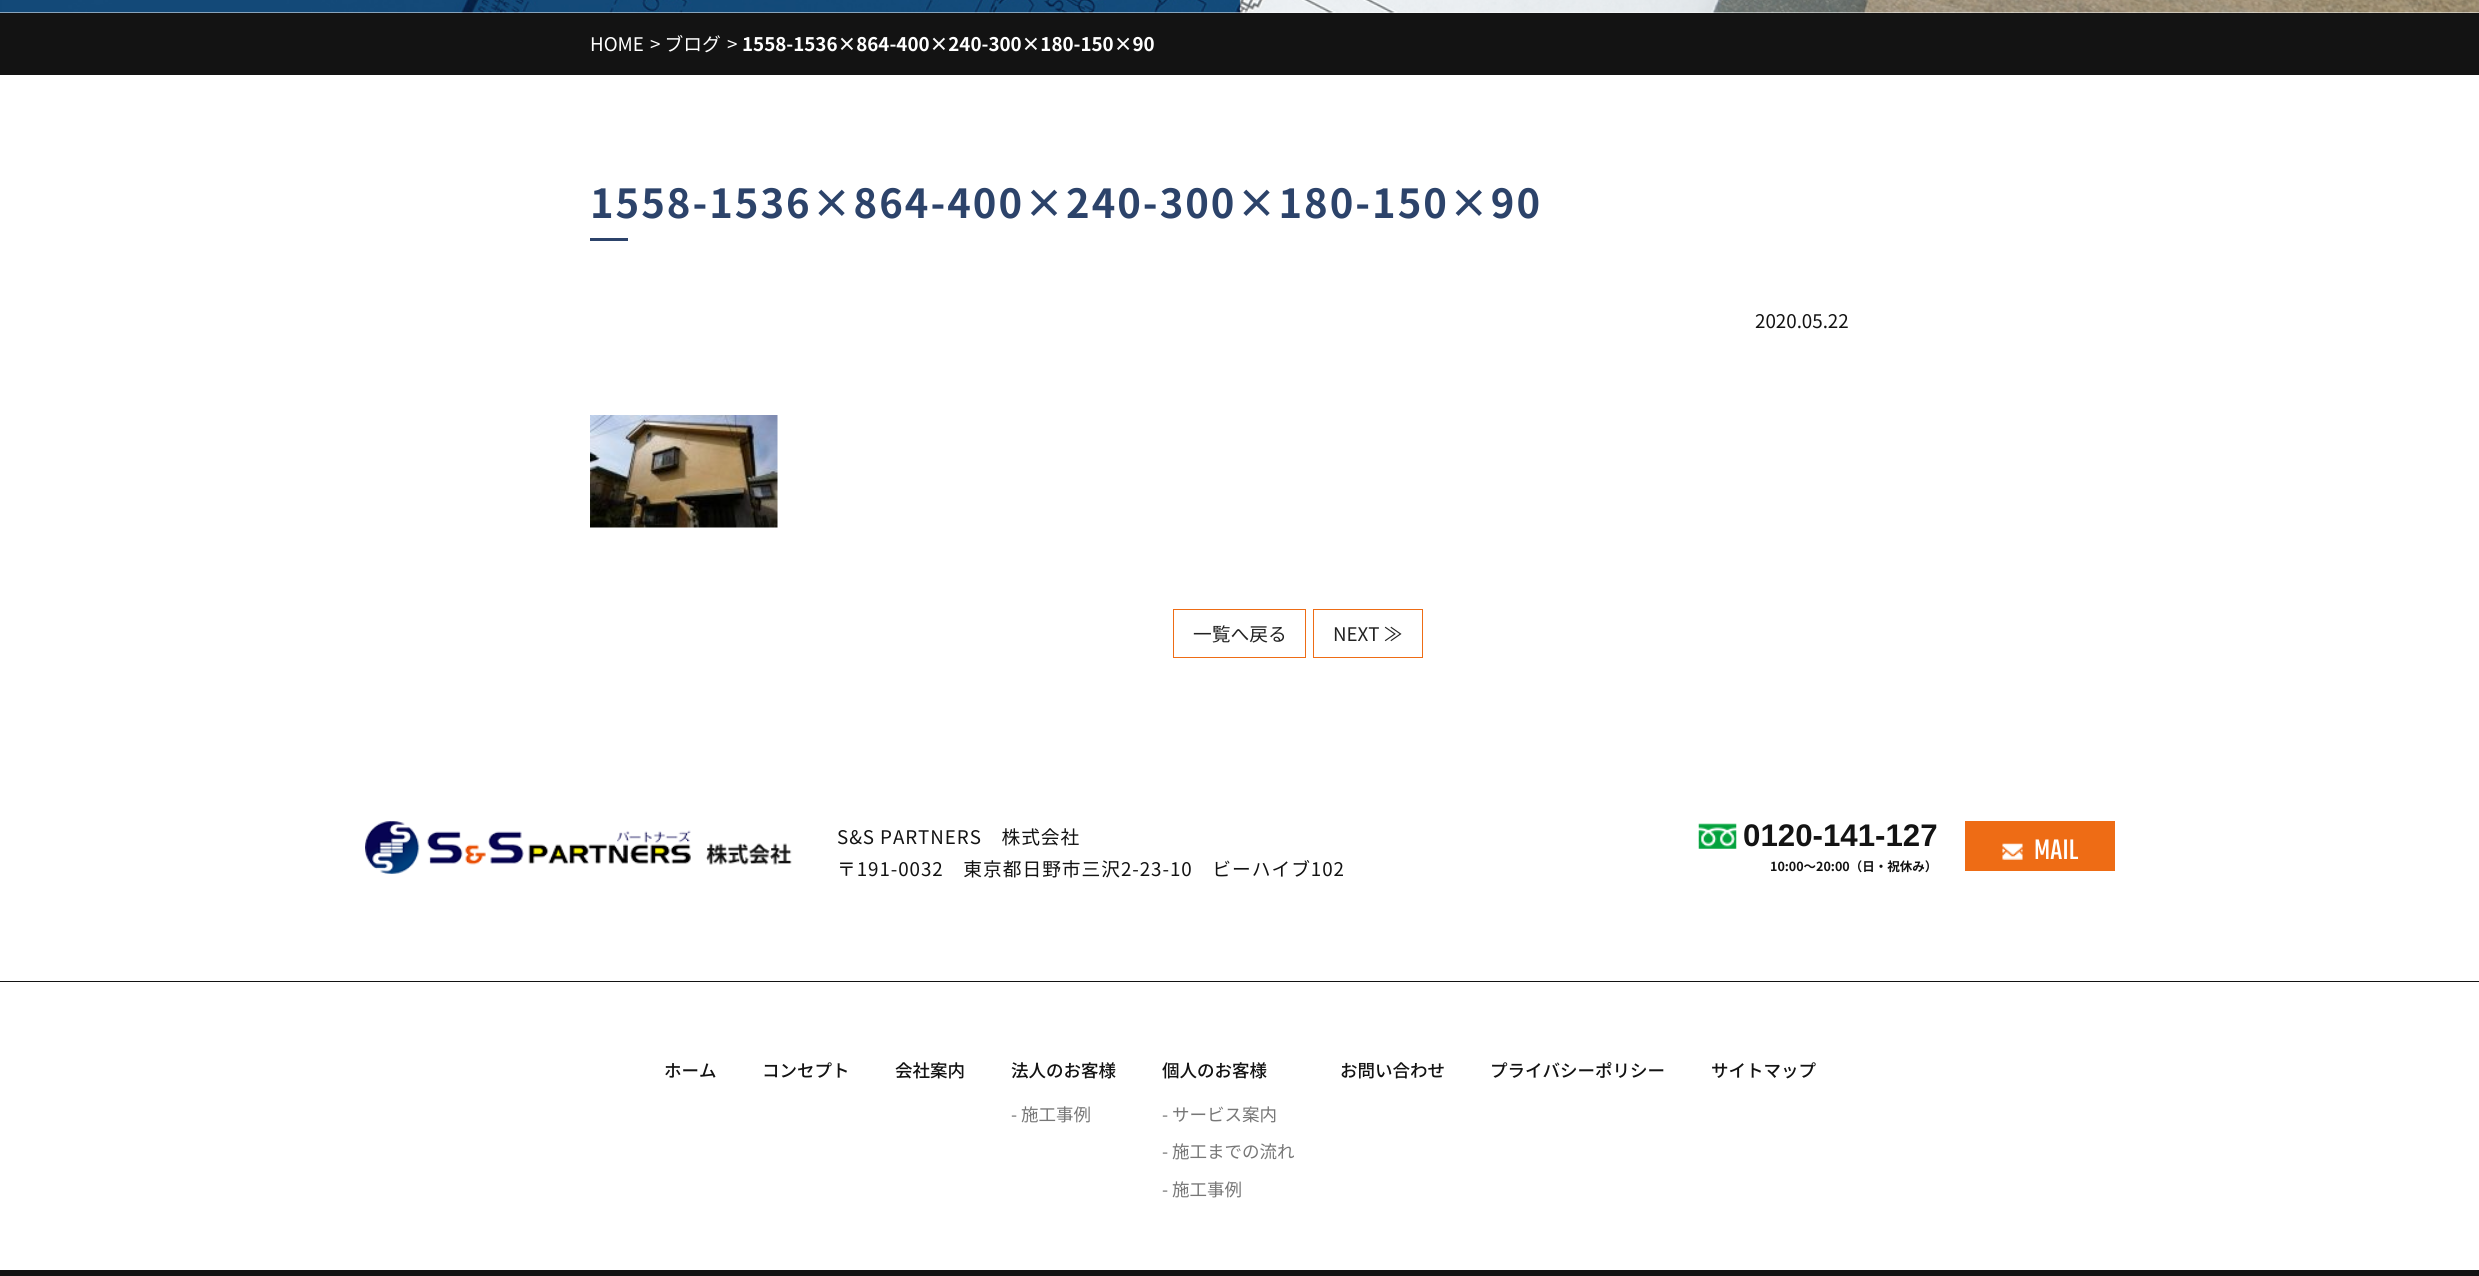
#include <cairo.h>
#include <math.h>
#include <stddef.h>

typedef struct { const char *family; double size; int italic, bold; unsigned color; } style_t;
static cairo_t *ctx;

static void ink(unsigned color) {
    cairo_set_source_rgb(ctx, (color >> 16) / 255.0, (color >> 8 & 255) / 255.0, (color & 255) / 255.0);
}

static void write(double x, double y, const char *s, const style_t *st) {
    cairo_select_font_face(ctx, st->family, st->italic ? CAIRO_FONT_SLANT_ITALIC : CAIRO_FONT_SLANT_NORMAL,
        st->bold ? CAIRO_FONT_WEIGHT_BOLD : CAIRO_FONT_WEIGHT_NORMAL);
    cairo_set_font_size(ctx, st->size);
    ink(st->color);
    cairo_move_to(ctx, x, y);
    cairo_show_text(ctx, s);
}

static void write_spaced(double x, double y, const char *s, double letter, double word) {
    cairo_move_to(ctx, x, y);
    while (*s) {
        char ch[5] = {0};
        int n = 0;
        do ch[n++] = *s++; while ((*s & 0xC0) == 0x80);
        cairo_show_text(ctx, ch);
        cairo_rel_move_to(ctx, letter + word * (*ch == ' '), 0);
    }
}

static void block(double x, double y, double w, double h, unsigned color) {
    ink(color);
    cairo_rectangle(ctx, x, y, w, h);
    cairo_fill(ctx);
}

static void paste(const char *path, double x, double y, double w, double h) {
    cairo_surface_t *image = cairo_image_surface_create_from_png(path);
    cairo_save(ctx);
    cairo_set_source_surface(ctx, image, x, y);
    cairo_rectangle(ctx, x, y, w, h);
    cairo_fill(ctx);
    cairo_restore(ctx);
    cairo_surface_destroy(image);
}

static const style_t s1 = {"Noto Sans JP", 18.75, 0, 0, 0xffffff};
static const style_t s2 = {"Noto Sans JP", 18.75, 0, 1, 0xffffff};
static const style_t s3 = {"Noto Sans JP", 18.75, 0, 0, 0x131313};
static const style_t s4 = {"Noto Sans JP", 18.75, 0, 0, 0x222222};
static const style_t s5 = {"Liberation Sans", 31.25, 0, 1, 0x131313};
static const style_t s6 = {"Noto Sans JP", 12.5, 0, 1, 0x131313};
static const style_t s7 = {"Teko", 31.25, 0, 0, 0xffffff};
static const style_t s8 = {"Noto Sans JP Medium", 17.5, 0, 0, 0x131313};
static const style_t s9 = {"Noto Sans JP", 17.5, 0, 0, 0x777777};

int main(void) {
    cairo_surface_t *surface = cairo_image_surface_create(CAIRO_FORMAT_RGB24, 2479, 1276);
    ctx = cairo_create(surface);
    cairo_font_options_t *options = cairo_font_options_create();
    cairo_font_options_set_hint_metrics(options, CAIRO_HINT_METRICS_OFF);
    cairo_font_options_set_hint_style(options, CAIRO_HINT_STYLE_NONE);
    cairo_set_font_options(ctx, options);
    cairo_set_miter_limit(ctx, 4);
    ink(0xffffff);
    cairo_paint(ctx);
    paste("pic1.png", 0, 0, 2479, 13);
    block(0, 13, 2479, 62, 0x131313);
    write(590, 51, "HOME", &s1);
    write(650, 51, "> ブログ", &s1);
    write(727, 51, ">", &s1);
    write(742, 51, "1558-1536×864-400×240-300×180-150×90", &s2);
    cairo_set_font_size(ctx, 40);
    ink(0x2c436a);
    write_spaced(590, 218, "1558-1536×864-400×240-300×180-150×90", 2, 0);
    block(590, 238, 38, 3, 0x2c436a);
    write(1755, 328, "2020.05.22", &s3);
    paste("pic2.png", 590, 415, 188, 113);
    cairo_rectangle(ctx, 1173.5, 609.5, 132, 48);
    ink(0xee6c15);
    cairo_set_line_width(ctx, 1);
    cairo_stroke(ctx);
    write(1193, 641, "一覧へ戻る", &s4);
    cairo_rectangle(ctx, 1313.5, 609.5, 109, 48);
    ink(0xee6c15);
    cairo_stroke(ctx);
    write(1333, 641, "NEXT ≫", &s4);
    paste("pic3.png", 365, 821, 427, 53);
    ink(0x131313);
    write_spaced(837, 844, "S&S PARTNERS　株式会社", 0.95, 0);
    write_spaced(837, 876, "〒191-0032　東京都日野市三沢2-23-10　ビーハイブ102", 0.95, 0);
    paste("pic4.png", 1698, 823, 39, 26);
    write(1743, 846, "0120-141-127", &s5);
    write(1770, 871, "10:00〜20:00（日・祝休み）", &s6);
    block(1965, 821, 150, 50, 0xee6c15);
    paste("pic5.png", 2002, 843, 21, 17);
    write(2034, 859, "MAIL", &s7);
    block(0, 981, 2479, 1, 0x131313);
    write(664, 1077, "ホーム", &s8);
    write(762, 1077, "コンセプト", &s8);
    write(895, 1077, "会社案内", &s8);
    write(1011, 1077, "法人のお客様", &s8);
    write(1011, 1121, "- 施工事例", &s9);
    write(1162, 1077, "個人のお客様", &s8);
    write(1162, 1121, "- サービス案内", &s9);
    write(1162, 1158, "- 施工までの流れ", &s9);
    write(1162, 1196, "- 施工事例", &s9);
    write(1340, 1077, "お問い合わせ", &s8);
    write(1490, 1077, "プライバシーポリシー", &s8);
    write(1711, 1077, "サイトマップ", &s8);
    block(0, 1270, 2479, 6, 0x131313);
    cairo_surface_write_to_png(surface, "screenshot.png");
    cairo_font_options_destroy(options);
    cairo_destroy(ctx);
    cairo_surface_destroy(surface);
    return 0;
}
